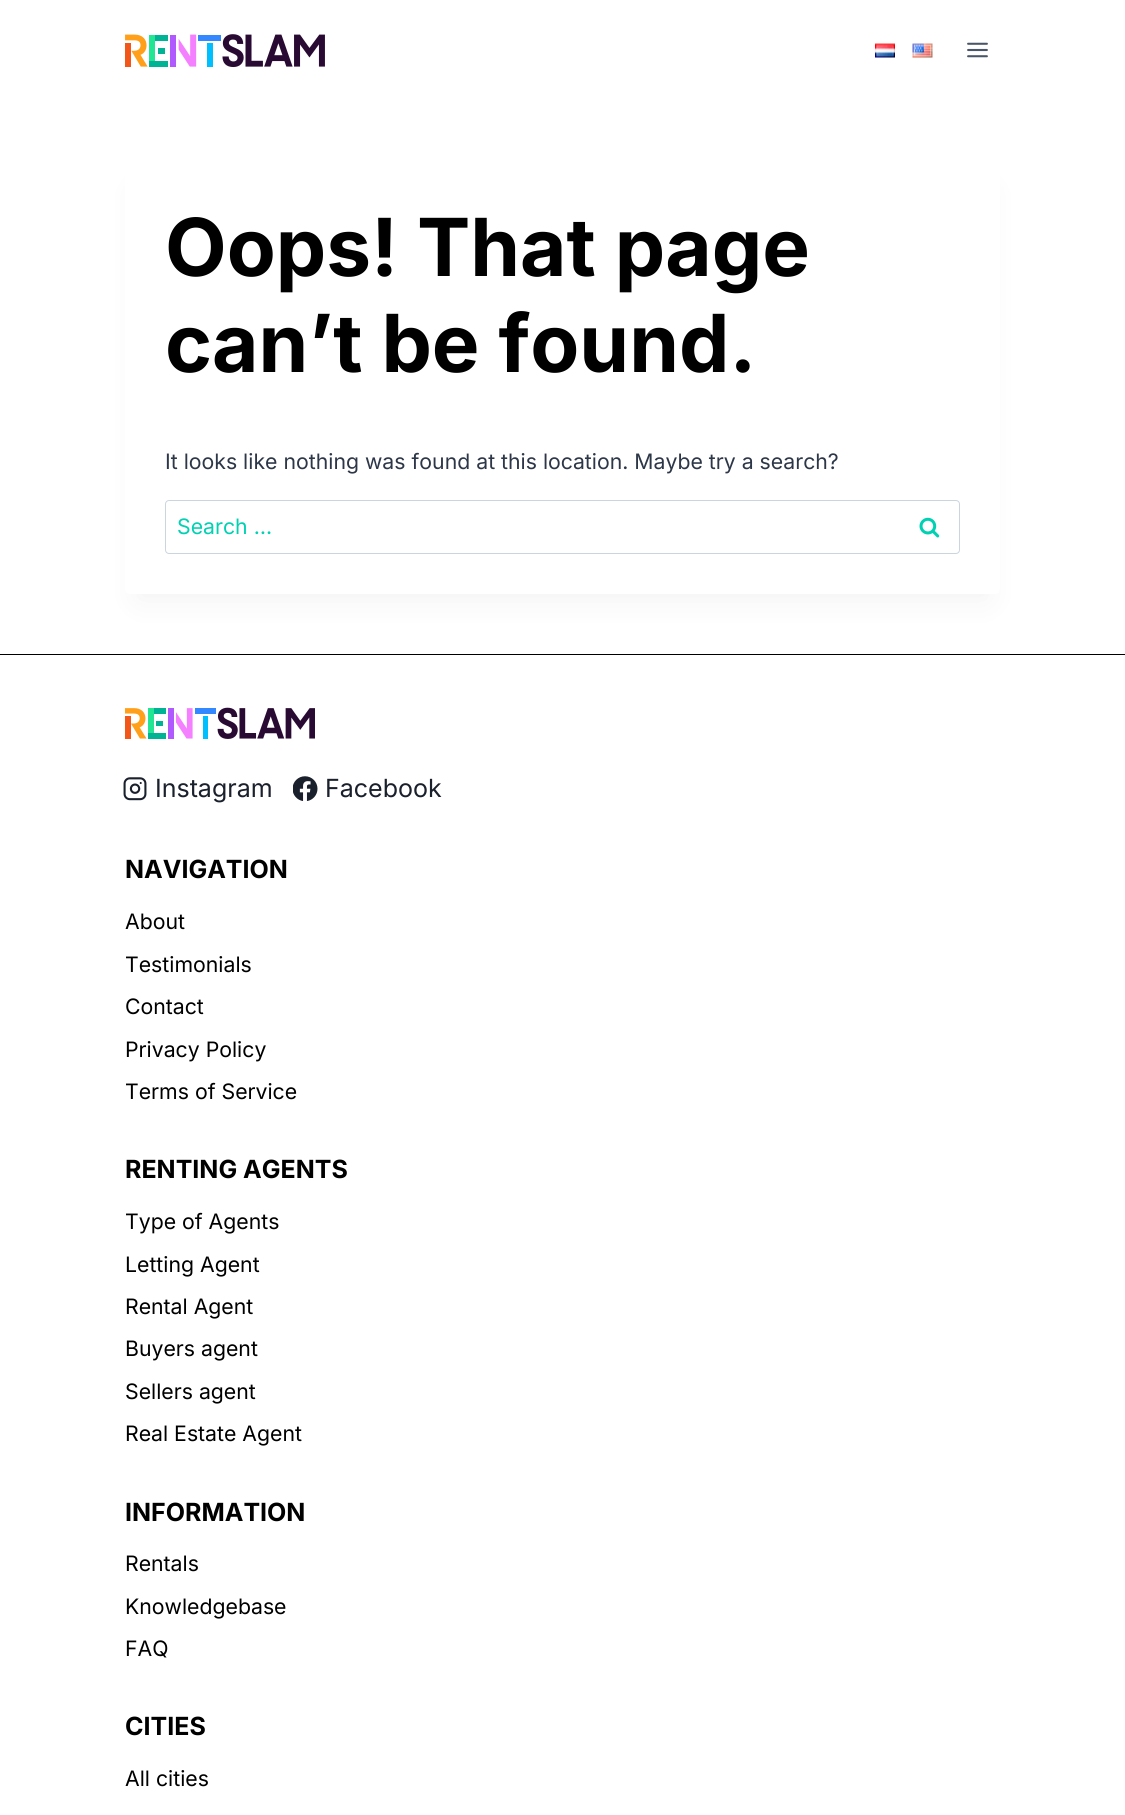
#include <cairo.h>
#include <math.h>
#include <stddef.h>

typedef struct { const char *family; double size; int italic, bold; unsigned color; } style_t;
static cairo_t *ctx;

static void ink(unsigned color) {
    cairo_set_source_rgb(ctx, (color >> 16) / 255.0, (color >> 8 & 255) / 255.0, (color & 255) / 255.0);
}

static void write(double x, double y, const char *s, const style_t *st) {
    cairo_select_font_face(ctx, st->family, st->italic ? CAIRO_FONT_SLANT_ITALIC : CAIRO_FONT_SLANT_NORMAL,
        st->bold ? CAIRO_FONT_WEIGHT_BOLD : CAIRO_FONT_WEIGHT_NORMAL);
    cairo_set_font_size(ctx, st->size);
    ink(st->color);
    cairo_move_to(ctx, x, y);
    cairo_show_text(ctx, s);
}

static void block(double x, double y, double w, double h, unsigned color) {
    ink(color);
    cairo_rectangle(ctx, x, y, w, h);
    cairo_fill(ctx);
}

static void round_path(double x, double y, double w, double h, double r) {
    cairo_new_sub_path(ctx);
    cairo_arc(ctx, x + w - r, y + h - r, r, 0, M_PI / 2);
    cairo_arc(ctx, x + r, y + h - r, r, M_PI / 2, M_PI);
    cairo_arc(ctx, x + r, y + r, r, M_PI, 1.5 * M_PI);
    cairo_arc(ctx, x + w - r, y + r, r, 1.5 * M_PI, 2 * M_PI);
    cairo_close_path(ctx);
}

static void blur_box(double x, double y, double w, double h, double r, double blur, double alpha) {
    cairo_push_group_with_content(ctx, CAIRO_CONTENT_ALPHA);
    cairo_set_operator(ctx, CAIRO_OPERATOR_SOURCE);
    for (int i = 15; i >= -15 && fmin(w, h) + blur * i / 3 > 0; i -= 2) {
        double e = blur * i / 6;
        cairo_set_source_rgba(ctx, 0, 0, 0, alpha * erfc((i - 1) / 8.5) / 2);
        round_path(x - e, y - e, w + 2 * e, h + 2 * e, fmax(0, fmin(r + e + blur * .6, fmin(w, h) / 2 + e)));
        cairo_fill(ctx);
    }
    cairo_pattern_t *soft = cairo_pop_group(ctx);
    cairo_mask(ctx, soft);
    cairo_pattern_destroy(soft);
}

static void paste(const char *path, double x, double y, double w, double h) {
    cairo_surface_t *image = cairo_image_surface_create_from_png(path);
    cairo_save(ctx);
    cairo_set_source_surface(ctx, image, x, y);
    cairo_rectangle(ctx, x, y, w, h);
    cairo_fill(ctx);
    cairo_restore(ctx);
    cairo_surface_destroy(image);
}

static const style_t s1 = {"Inter", 80, 0, 1, 0x000000};
static const style_t s2 = {"Inter", 21.25, 0, 0, 0x2d3748};
static const style_t s3 = {"Inter", 21.25, 0, 0, 0x00d1b2};
static const style_t s4 = {"Inter", 25, 0, 0, 0x1a202c};
static const style_t s5 = {"Inter", 25, 0, 1, 0x000000};
static const style_t s6 = {"Inter", 21.25, 0, 0, 0x000000};

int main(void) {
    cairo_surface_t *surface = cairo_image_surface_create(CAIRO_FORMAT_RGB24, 1125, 1815);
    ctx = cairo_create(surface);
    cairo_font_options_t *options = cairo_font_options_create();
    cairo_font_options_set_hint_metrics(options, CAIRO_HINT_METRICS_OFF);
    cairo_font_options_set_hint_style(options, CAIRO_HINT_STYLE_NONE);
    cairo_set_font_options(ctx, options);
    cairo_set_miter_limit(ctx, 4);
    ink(0xffffff);
    cairo_paint(ctx);
    paste("pic1.png", 125, 34, 200, 34);
    paste("pic2.png", 875, 43, 20, 15);
    paste("pic3.png", 912, 43, 21, 15);
    paste("pic4.png", 967, 42, 21, 16);
    ink(0x000000);
    blur_box(138, 191, 850, 409, 0, 15.5, 0.05);
    ink(0xffffff);
    round_path(125, 160, 875, 434, 5);
    cairo_fill(ctx);
    write(165, 276, "Oops! That page", &s1);
    write(165, 372, "can’t be found.", &s1);
    write(165, 469, "It looks like nothing was found at this location. Maybe try a search?", &s2);
    round_path(165.5, 500.5, 794, 53, 3.5);
    ink(0xcbd5e0);
    cairo_set_line_width(ctx, 1);
    cairo_stroke(ctx);
    write(177, 534, "Search …", &s3);
    paste("pic5.png", 919, 517, 21, 21);
    block(0, 654, 1125, 1, 0x000000);
    paste("pic6.png", 125, 707, 190, 32);
    paste("pic7.png", 123, 777, 24, 24);
    write(155, 797, "Instagram", &s4);
    paste("pic8.png", 293, 776, 25, 25);
    write(325, 797, "Facebook", &s4);
    write(125, 878, "NAVIGATION", &s5);
    write(125, 929, "About", &s6);
    write(125, 972, "Testimonials", &s6);
    write(125, 1014, "Contact", &s6);
    write(125, 1057, "Privacy Policy", &s6);
    write(125, 1099, "Terms of Service", &s6);
    write(125, 1178, "RENTING AGENTS", &s5);
    write(125, 1229, "Type of Agents", &s6);
    write(125, 1272, "Letting Agent", &s6);
    write(125, 1314, "Rental Agent", &s6);
    write(125, 1356, "Buyers agent", &s6);
    write(125, 1399, "Sellers agent", &s6);
    write(125, 1441, "Real Estate Agent", &s6);
    write(125, 1521, "INFORMATION", &s5);
    write(125, 1571, "Rentals", &s6);
    write(125, 1614, "Knowledgebase", &s6);
    write(125, 1656, "FAQ", &s6);
    write(125, 1735, "CITIES", &s5);
    write(125, 1786, "All cities", &s6);
    cairo_surface_write_to_png(surface, "screenshot.png");
    cairo_font_options_destroy(options);
    cairo_destroy(ctx);
    cairo_surface_destroy(surface);
    return 0;
}
